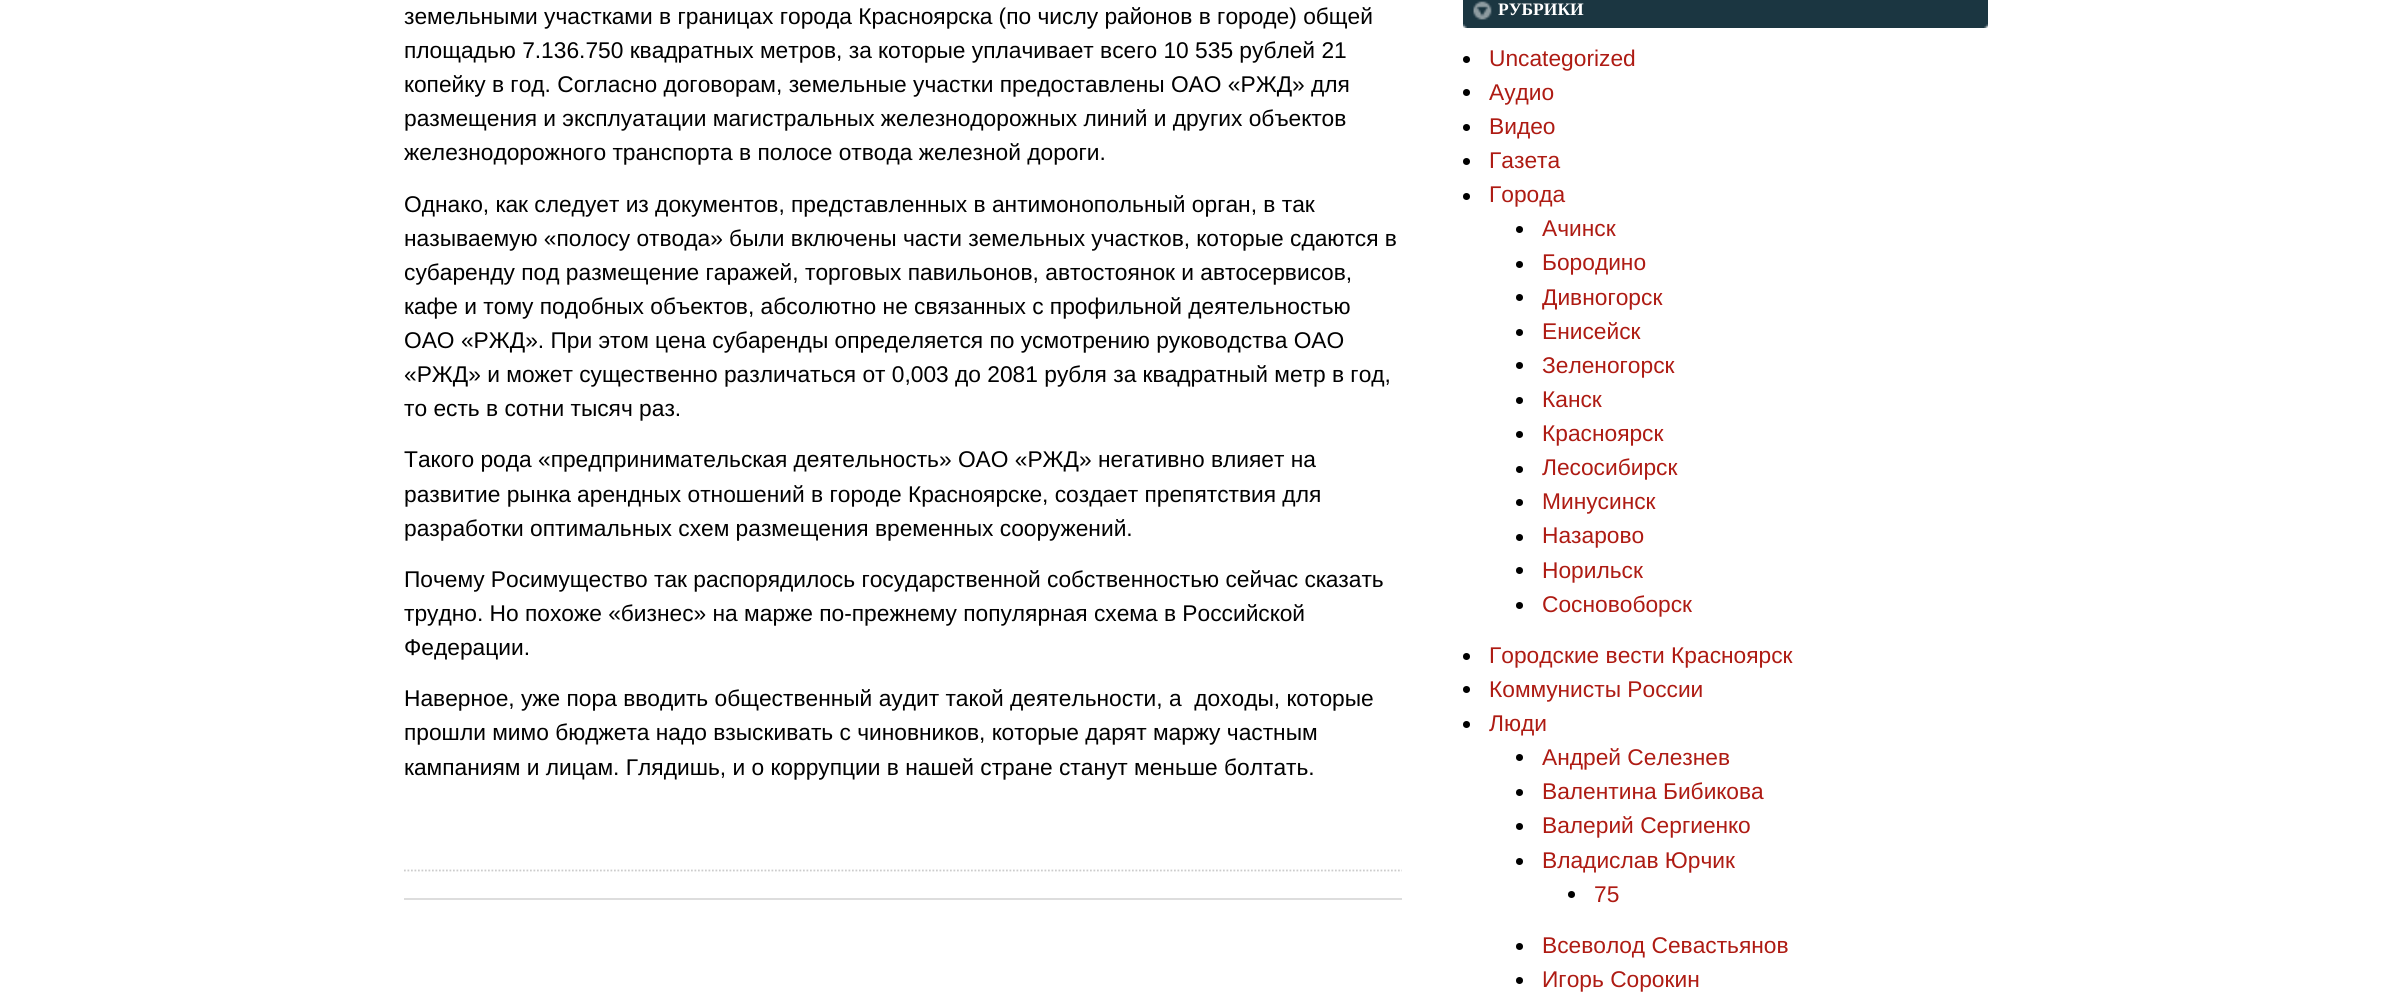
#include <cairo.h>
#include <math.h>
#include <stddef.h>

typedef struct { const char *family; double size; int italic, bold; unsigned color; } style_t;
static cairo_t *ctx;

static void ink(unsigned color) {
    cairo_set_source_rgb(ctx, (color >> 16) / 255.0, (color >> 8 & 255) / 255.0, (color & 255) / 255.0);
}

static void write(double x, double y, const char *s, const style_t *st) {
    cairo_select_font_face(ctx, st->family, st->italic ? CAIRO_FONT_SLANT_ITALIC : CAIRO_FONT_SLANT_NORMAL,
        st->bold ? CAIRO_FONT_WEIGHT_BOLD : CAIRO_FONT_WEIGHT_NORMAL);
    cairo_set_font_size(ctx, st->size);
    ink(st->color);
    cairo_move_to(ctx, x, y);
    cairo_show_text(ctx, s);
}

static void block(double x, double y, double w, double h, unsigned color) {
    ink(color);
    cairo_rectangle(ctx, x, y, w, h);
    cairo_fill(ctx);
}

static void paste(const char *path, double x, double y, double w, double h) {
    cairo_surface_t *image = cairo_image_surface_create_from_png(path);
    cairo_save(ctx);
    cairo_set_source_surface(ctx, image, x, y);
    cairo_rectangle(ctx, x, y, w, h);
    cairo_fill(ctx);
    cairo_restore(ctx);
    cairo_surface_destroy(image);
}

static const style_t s1 = {"Liberation Sans", 22.75, 0, 0, 0x000000};
static const style_t s2 = {"Liberation Serif", 17.5, 0, 1, 0xffffff};
static const style_t s3 = {"Liberation Sans", 22.75, 0, 0, 0xae1b13};

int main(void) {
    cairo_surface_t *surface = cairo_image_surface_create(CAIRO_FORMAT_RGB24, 2383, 1005);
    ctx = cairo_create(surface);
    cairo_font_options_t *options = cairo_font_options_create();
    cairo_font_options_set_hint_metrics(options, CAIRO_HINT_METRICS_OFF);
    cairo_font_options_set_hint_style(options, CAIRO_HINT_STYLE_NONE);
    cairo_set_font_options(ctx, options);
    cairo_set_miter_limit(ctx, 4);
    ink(0xffffff);
    cairo_paint(ctx);
    block(404, 898, 998, 2, 0xdddddd);
    write(404, 24, "земельными участками в границах города Красноярска (по числу районов в городе) общей", &s1);
    write(404, 58, "площадью 7.136.750 квадратных метров, за которые уплачивает всего 10 535 рублей 21", &s1);
    write(404, 92, "копейку в год. Согласно договорам, земельные участки предоставлены ОАО «РЖД» для", &s1);
    write(404, 126, "размещения и эксплуатации магистральных железнодорожных линий и других объектов", &s1);
    write(404, 160, "железнодорожного транспорта в полосе отвода железной дороги.", &s1);
    write(404, 212, "Однако, как следует из документов, представленных в антимонопольный орган, в так", &s1);
    write(404, 246, "называемую «полосу отвода» были включены части земельных участков, которые сдаются в", &s1);
    write(404, 280, "субаренду под размещение гаражей, торговых павильонов, автостоянок и автосервисов,", &s1);
    write(404, 314, "кафе и тому подобных объектов, абсолютно не связанных с профильной деятельностью", &s1);
    write(404, 348, "ОАО «РЖД». При этом цена субаренды определяется по усмотрению руководства ОАО", &s1);
    write(404, 382, "«РЖД» и может существенно различаться от 0,003 до 2081 рубля за квадратный метр в год,", &s1);
    write(404, 416, "то есть в сотни тысяч раз.", &s1);
    write(404, 467, "Такого рода «предпринимательская деятельность» ОАО «РЖД» негативно влияет на", &s1);
    write(404, 502, "развитие рынка арендных отношений в городе Красноярске, создает препятствия для", &s1);
    write(404, 536, "разработки оптимальных схем размещения временных сооружений.", &s1);
    write(404, 587, "Почему Росимущество так распорядилось государственной собственностью сейчас сказать", &s1);
    write(404, 621, "трудно. Но похоже «бизнес» на марже по-прежнему популярная схема в Российской", &s1);
    write(404, 655, "Федерации.", &s1);
    write(404, 706, "Наверное, уже пора вводить общественный аудит такой деятельности, а  доходы, которые", &s1);
    write(404, 740, "прошли мимо бюджета надо взыскивать с чиновников, которые дарят маржу частным", &s1);
    write(404, 775, "кампаниям и лицам. Глядишь, и о коррупции в нашей стране станут меньше болтать.", &s1);
    cairo_new_path(ctx);
    cairo_move_to(ctx, 404, 870.5);
    cairo_line_to(ctx, 1402, 870.5);
    ink(0xcccccc);
    cairo_set_line_width(ctx, 1.8);
    cairo_set_dash(ctx, (double[]){1.75, 1.75}, 2, 0);
    cairo_stroke(ctx);
    paste("pic1.png", 1463, 0, 525, 28);
    write(1498, 15, "РУБРИКИ", &s2);
    ink(0x000000);
    cairo_new_path(ctx);
    cairo_arc(ctx, 1466.5, 59.5, 3.5, 0, 2 * M_PI);
    cairo_fill(ctx);
    write(1489, 66, "Uncategorized", &s3);
    ink(0x000000);
    cairo_new_path(ctx);
    cairo_arc(ctx, 1466.5, 92.5, 3.5, 0, 2 * M_PI);
    cairo_fill(ctx);
    write(1489, 100, "Аудио", &s3);
    ink(0x000000);
    cairo_new_path(ctx);
    cairo_arc(ctx, 1466.5, 127.5, 3.5, 0, 2 * M_PI);
    cairo_fill(ctx);
    write(1489, 134, "Видео", &s3);
    ink(0x000000);
    cairo_new_path(ctx);
    cairo_arc(ctx, 1466.5, 161.5, 3.5, 0, 2 * M_PI);
    cairo_fill(ctx);
    write(1489, 168, "Газета", &s3);
    ink(0x000000);
    cairo_new_path(ctx);
    cairo_arc(ctx, 1466.5, 196.5, 3.5, 0, 2 * M_PI);
    cairo_fill(ctx);
    write(1489, 202, "Города", &s3);
    ink(0x000000);
    cairo_new_path(ctx);
    cairo_arc(ctx, 1519.5, 229.5, 3.5, 0, 2 * M_PI);
    cairo_fill(ctx);
    write(1542, 236, "Ачинск", &s3);
    ink(0x000000);
    cairo_new_path(ctx);
    cairo_arc(ctx, 1519.5, 264.5, 3.5, 0, 2 * M_PI);
    cairo_fill(ctx);
    write(1542, 270, "Бородино", &s3);
    ink(0x000000);
    cairo_new_path(ctx);
    cairo_arc(ctx, 1519.5, 297.5, 3.5, 0, 2 * M_PI);
    cairo_fill(ctx);
    write(1542, 305, "Дивногорск", &s3);
    ink(0x000000);
    cairo_new_path(ctx);
    cairo_arc(ctx, 1519.5, 332.5, 3.5, 0, 2 * M_PI);
    cairo_fill(ctx);
    write(1542, 339, "Енисейск", &s3);
    ink(0x000000);
    cairo_new_path(ctx);
    cairo_arc(ctx, 1519.5, 365.5, 3.5, 0, 2 * M_PI);
    cairo_fill(ctx);
    write(1542, 373, "Зеленогорск", &s3);
    ink(0x000000);
    cairo_new_path(ctx);
    cairo_arc(ctx, 1519.5, 400.5, 3.5, 0, 2 * M_PI);
    cairo_fill(ctx);
    write(1542, 407, "Канск", &s3);
    ink(0x000000);
    cairo_new_path(ctx);
    cairo_arc(ctx, 1519.5, 434.5, 3.5, 0, 2 * M_PI);
    cairo_fill(ctx);
    write(1542, 441, "Красноярск", &s3);
    ink(0x000000);
    cairo_new_path(ctx);
    cairo_arc(ctx, 1519.5, 469.5, 3.5, 0, 2 * M_PI);
    cairo_fill(ctx);
    write(1542, 475, "Лесосибирск", &s3);
    ink(0x000000);
    cairo_new_path(ctx);
    cairo_arc(ctx, 1519.5, 502.5, 3.5, 0, 2 * M_PI);
    cairo_fill(ctx);
    write(1542, 509, "Минусинск", &s3);
    ink(0x000000);
    cairo_new_path(ctx);
    cairo_arc(ctx, 1519.5, 537.5, 3.5, 0, 2 * M_PI);
    cairo_fill(ctx);
    write(1542, 543, "Назарово", &s3);
    ink(0x000000);
    cairo_new_path(ctx);
    cairo_arc(ctx, 1519.5, 570.5, 3.5, 0, 2 * M_PI);
    cairo_fill(ctx);
    write(1542, 578, "Норильск", &s3);
    ink(0x000000);
    cairo_new_path(ctx);
    cairo_arc(ctx, 1519.5, 605.5, 3.5, 0, 2 * M_PI);
    cairo_fill(ctx);
    write(1542, 612, "Сосновоборск", &s3);
    ink(0x000000);
    cairo_new_path(ctx);
    cairo_arc(ctx, 1466.5, 656.5, 3.5, 0, 2 * M_PI);
    cairo_fill(ctx);
    write(1489, 663, "Городские вести Красноярск", &s3);
    ink(0x000000);
    cairo_new_path(ctx);
    cairo_arc(ctx, 1466.5, 689.5, 3.5, 0, 2 * M_PI);
    cairo_fill(ctx);
    write(1489, 697, "Коммунисты России", &s3);
    ink(0x000000);
    cairo_new_path(ctx);
    cairo_arc(ctx, 1466.5, 724.5, 3.5, 0, 2 * M_PI);
    cairo_fill(ctx);
    write(1489, 731, "Люди", &s3);
    ink(0x000000);
    cairo_new_path(ctx);
    cairo_arc(ctx, 1519.5, 757.5, 3.5, 0, 2 * M_PI);
    cairo_fill(ctx);
    write(1542, 765, "Андрей Селезнев", &s3);
    ink(0x000000);
    cairo_new_path(ctx);
    cairo_arc(ctx, 1519.5, 792.5, 3.5, 0, 2 * M_PI);
    cairo_fill(ctx);
    write(1542, 799, "Валентина Бибикова", &s3);
    ink(0x000000);
    cairo_new_path(ctx);
    cairo_arc(ctx, 1519.5, 826.5, 3.5, 0, 2 * M_PI);
    cairo_fill(ctx);
    write(1542, 833, "Валерий Сергиенко", &s3);
    ink(0x000000);
    cairo_new_path(ctx);
    cairo_arc(ctx, 1519.5, 861.5, 3.5, 0, 2 * M_PI);
    cairo_fill(ctx);
    write(1542, 868, "Владислав Юрчик", &s3);
    ink(0x000000);
    cairo_new_path(ctx);
    cairo_arc(ctx, 1571.5, 894.5, 3.5, 0, 2 * M_PI);
    cairo_fill(ctx);
    write(1594, 902, "75", &s3);
    ink(0x000000);
    cairo_new_path(ctx);
    cairo_arc(ctx, 1519.5, 946.5, 3.5, 0, 2 * M_PI);
    cairo_fill(ctx);
    write(1542, 953, "Всеволод Севастьянов", &s3);
    ink(0x000000);
    cairo_new_path(ctx);
    cairo_arc(ctx, 1519.5, 980.5, 3.5, 0, 2 * M_PI);
    cairo_fill(ctx);
    write(1542, 987, "Игорь Сорокин", &s3);
    cairo_surface_write_to_png(surface, "screenshot.png");
    cairo_font_options_destroy(options);
    cairo_destroy(ctx);
    cairo_surface_destroy(surface);
    return 0;
}
